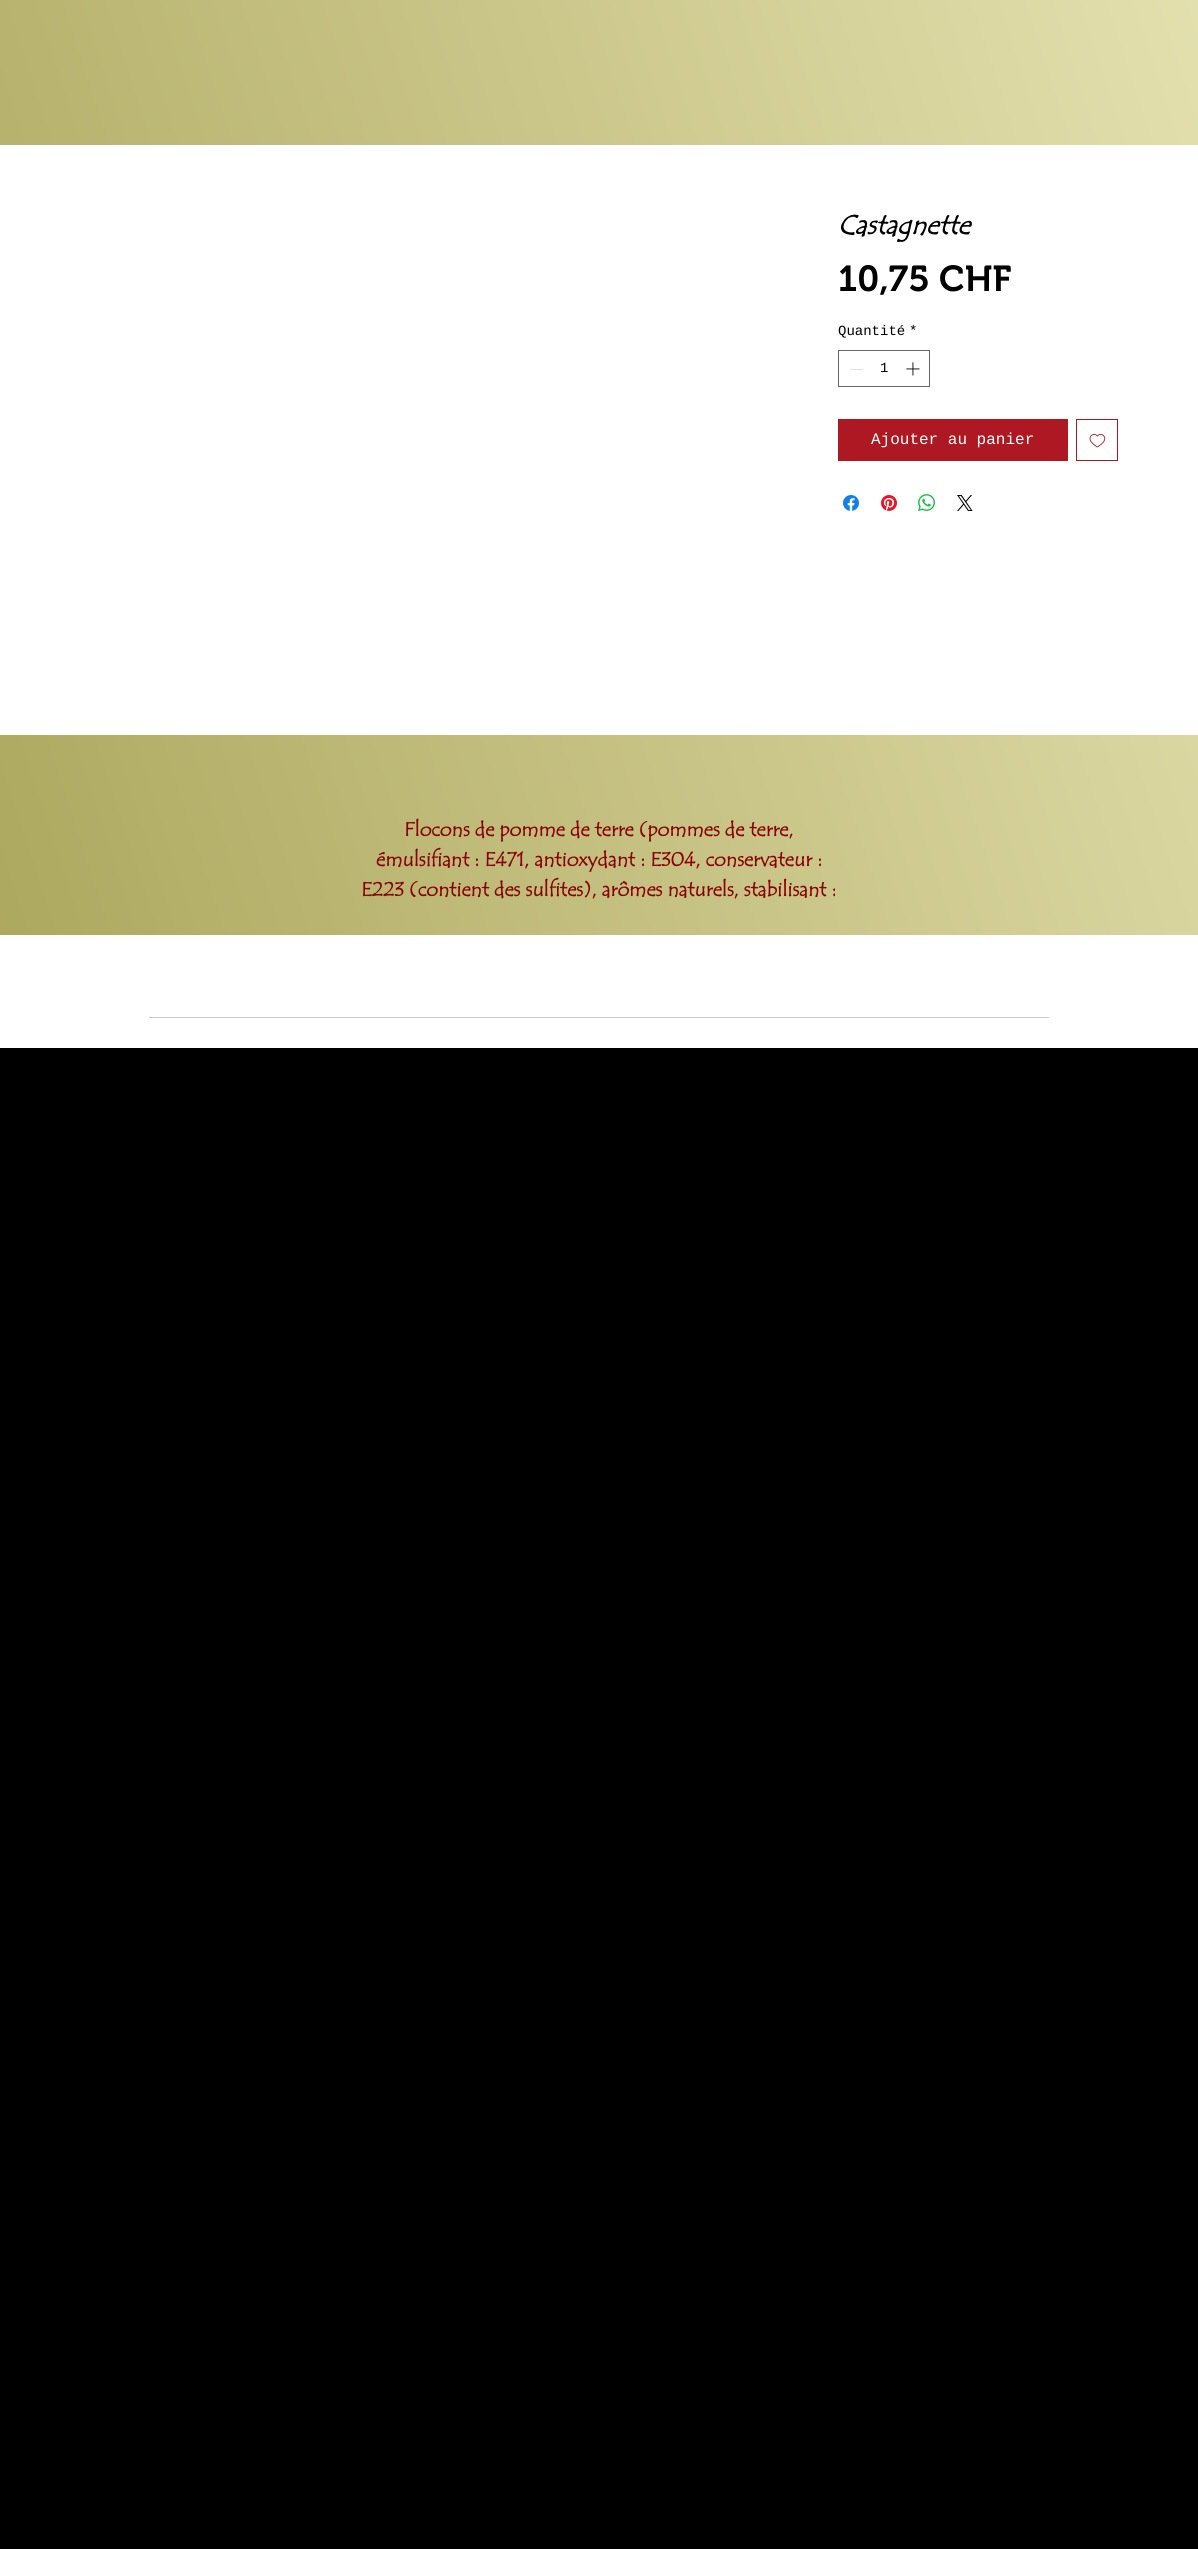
#include <cairo.h>
#include <math.h>
#include <stddef.h>

typedef struct { const char *family; double size; int italic, bold; unsigned color; } style_t;
static cairo_t *ctx;

static void ink(unsigned color) {
    cairo_set_source_rgb(ctx, (color >> 16) / 255.0, (color >> 8 & 255) / 255.0, (color & 255) / 255.0);
}

static void write(double x, double y, const char *s, const style_t *st) {
    cairo_select_font_face(ctx, st->family, st->italic ? CAIRO_FONT_SLANT_ITALIC : CAIRO_FONT_SLANT_NORMAL,
        st->bold ? CAIRO_FONT_WEIGHT_BOLD : CAIRO_FONT_WEIGHT_NORMAL);
    cairo_set_font_size(ctx, st->size);
    ink(st->color);
    cairo_move_to(ctx, x, y);
    cairo_show_text(ctx, s);
}

static void block(double x, double y, double w, double h, unsigned color) {
    ink(color);
    cairo_rectangle(ctx, x, y, w, h);
    cairo_fill(ctx);
}

static void paste(const char *path, double x, double y, double w, double h) {
    cairo_surface_t *image = cairo_image_surface_create_from_png(path);
    cairo_save(ctx);
    cairo_set_source_surface(ctx, image, x, y);
    cairo_rectangle(ctx, x, y, w, h);
    cairo_fill(ctx);
    cairo_restore(ctx);
    cairo_surface_destroy(image);
}

static const style_t s1 = {"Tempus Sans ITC", 27, 1, 1, 0x000000};
static const style_t s2 = {"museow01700 SemiBold", 36, 0, 0, 0x000000};
static const style_t s3 = {"Liberation Mono", 14, 0, 0, 0x000000};
static const style_t s4 = {"Liberation Mono", 16, 0, 0, 0xffffff};
static const style_t s5 = {"Tempus Sans ITC", 20, 0, 1, 0x8b0000};

int main(void) {
    cairo_surface_t *surface = cairo_image_surface_create(CAIRO_FORMAT_RGB24, 1198, 2549);
    ctx = cairo_create(surface);
    cairo_font_options_t *options = cairo_font_options_create();
    cairo_font_options_set_hint_metrics(options, CAIRO_HINT_METRICS_OFF);
    cairo_font_options_set_hint_style(options, CAIRO_HINT_STYLE_NONE);
    cairo_set_font_options(ctx, options);
    cairo_set_miter_limit(ctx, 4);
    cairo_pattern_t *gradient;
    ink(0x000000);
    cairo_paint(ctx);
    gradient = cairo_pattern_create_linear(-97, 750, 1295, 298);
    cairo_pattern_add_color_stop_rgba(gradient, 0, 0.675, 0.655, 0.365, 1);
    cairo_pattern_add_color_stop_rgba(gradient, 1, 0.89, 0.878, 0.686, 1);
    cairo_set_source(ctx, gradient);
    cairo_pattern_destroy(gradient);
    cairo_rectangle(ctx, 0, 0, 1198, 935);
    cairo_fill(ctx);
    block(0, 145, 1198, 590, 0xffffff);
    write(838, 234, "Castagnette", &s1);
    write(838, 291, "10,75 CHF", &s2);
    write(838, 335, "Quantité", &s3);
    write(909, 335, "*", &s3);
    cairo_rectangle(ctx, 838.5, 350.5, 91, 36);
    ink(0x666666);
    cairo_set_line_width(ctx, 1);
    cairo_stroke(ctx);
    block(850, 369, 13, 1, 0xe3e3e3);
    write(880, 372, "1", &s3);
    paste("pic1.png", 906, 362, 14, 14);
    block(838, 419, 230, 42, 0xad1822);
    write(871, 444, "Ajouter au panier", &s4);
    cairo_rectangle(ctx, 1076.5, 419.5, 41, 41);
    ink(0xad1822);
    cairo_stroke(ctx);
    paste("pic2.png", 1089, 433, 17, 15);
    paste("pic3.png", 843, 495, 16, 16);
    paste("pic4.png", 881, 495, 16, 16);
    paste("pic5.png", 918, 494, 17, 17);
    paste("pic6.png", 957, 495, 16, 16);
    write(404, 836, "Flocons de pomme de terre (pommes de terre,", &s5);
    write(376, 866, "émulsifiant : E471, antioxydant : E304, conservateur :", &s5);
    write(361, 896, "E223 (contient des sulfites), arômes naturels, stabilisant :", &s5);
    block(0, 935, 1198, 113, 0xffffff);
    block(149, 1017, 900, 1, 0xcccccc);
    cairo_surface_write_to_png(surface, "screenshot.png");
    cairo_font_options_destroy(options);
    cairo_destroy(ctx);
    cairo_surface_destroy(surface);
    return 0;
}
